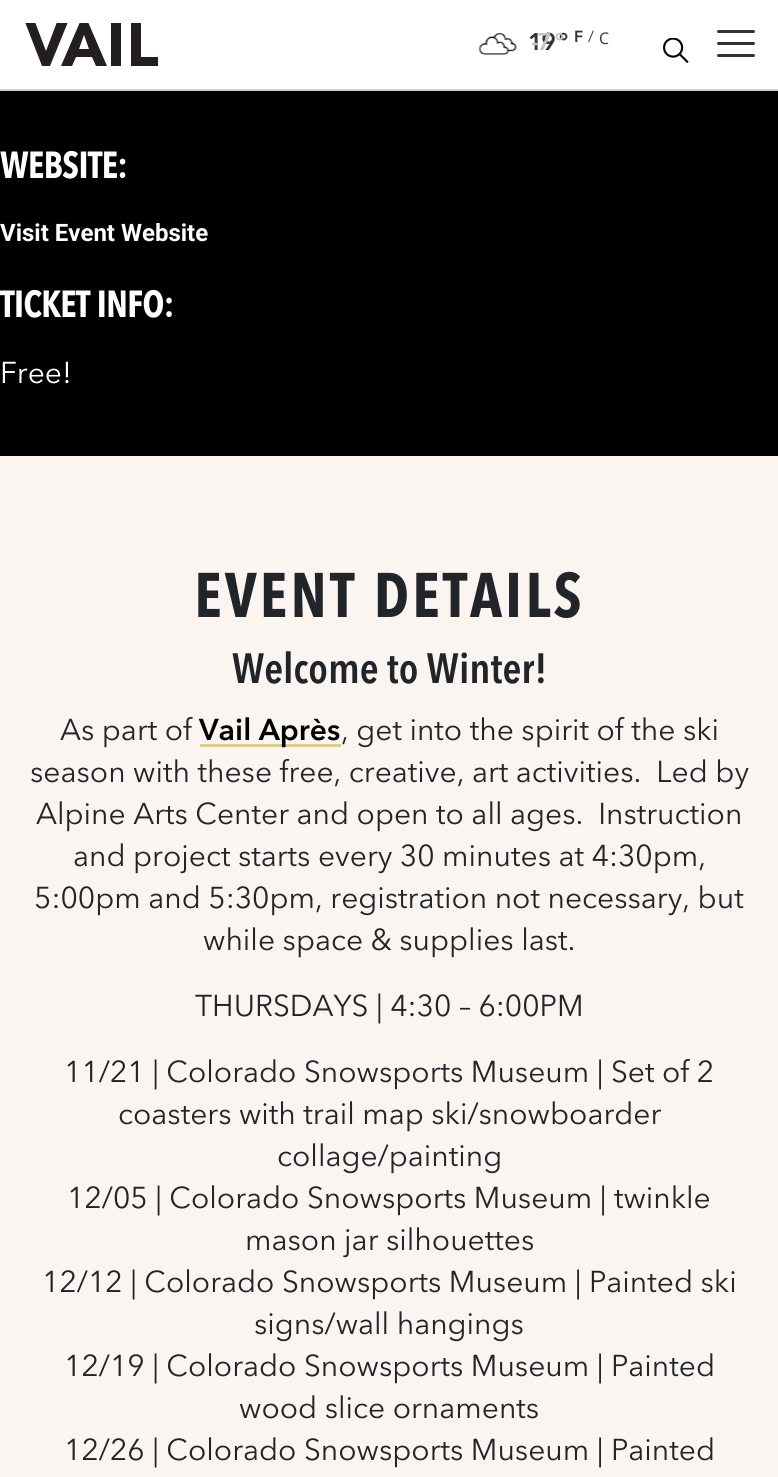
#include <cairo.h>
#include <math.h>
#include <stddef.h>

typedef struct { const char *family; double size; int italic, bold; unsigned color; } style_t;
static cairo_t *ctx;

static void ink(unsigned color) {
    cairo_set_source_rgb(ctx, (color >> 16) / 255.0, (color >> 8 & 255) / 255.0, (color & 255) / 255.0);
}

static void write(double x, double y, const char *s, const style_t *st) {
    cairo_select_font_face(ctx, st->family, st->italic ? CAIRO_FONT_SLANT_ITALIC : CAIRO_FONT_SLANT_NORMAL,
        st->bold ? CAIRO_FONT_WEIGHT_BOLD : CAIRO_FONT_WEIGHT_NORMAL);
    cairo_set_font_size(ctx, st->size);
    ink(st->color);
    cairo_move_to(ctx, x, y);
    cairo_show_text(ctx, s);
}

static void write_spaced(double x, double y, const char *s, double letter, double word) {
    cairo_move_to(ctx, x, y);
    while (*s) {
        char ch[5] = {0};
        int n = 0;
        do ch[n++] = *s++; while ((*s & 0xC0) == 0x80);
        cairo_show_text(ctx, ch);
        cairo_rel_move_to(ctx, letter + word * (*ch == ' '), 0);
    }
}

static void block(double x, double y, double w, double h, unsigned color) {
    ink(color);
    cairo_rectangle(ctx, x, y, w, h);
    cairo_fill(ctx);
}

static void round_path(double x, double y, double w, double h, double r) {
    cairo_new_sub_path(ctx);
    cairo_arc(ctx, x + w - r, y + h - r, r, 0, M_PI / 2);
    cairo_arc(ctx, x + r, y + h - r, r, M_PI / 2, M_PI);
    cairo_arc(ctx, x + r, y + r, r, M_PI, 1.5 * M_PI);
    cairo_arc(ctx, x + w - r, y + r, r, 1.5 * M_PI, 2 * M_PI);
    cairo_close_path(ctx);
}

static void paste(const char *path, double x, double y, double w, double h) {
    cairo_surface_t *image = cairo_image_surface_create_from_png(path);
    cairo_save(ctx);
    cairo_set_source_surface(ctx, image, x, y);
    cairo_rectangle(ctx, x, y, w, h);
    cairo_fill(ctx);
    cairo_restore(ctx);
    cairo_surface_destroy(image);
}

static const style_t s1 = {"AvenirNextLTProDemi", 16, 0, 0, 0x333333};
static const style_t s2 = {"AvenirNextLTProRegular", 16, 0, 0, 0x333333};
static const style_t s3 = {"Open Sans", 16, 0, 0, 0x333333};
static const style_t s4 = {"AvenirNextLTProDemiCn", 36, 0, 1, 0xffffff};
static const style_t s5 = {"Roboto", 24, 0, 1, 0xffffff};
static const style_t s6 = {"AvenirNextLTProRegular", 30, 0, 0, 0xffffff};
static const style_t s7 = {"AvenirNextLTProDemiCn", 42, 0, 0, 0x212529};
static const style_t s8 = {"AvenirNextLTProRegular", 30, 0, 0, 0x212529};
static const style_t s9 = {"AvenirNextLTProDemi", 30, 0, 0, 0x000000};

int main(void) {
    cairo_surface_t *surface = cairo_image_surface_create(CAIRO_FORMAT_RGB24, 778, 1477);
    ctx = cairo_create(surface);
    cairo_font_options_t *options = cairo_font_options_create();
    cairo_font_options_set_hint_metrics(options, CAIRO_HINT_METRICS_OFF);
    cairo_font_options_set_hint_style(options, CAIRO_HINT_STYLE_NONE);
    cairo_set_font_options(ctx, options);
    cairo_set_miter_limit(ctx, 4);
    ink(0xfaf5f1);
    cairo_paint(ctx);
    block(0, 0, 778, 89, 0xffffff);
    block(0, 89, 778, 2, 0xd3cfcc);
    cairo_save(ctx);
    cairo_rectangle(ctx, 24, 23, 135, 43);
    cairo_clip(ctx);
    ink(0x231f20);
    cairo_new_path(ctx);
    cairo_move_to(ctx, 25, 22);
    cairo_line_to(ctx, 35, 22);
    cairo_line_to(ctx, 46, 51);
    cairo_line_to(ctx, 57, 22);
    cairo_line_to(ctx, 68, 22);
    cairo_line_to(ctx, 50, 66);
    cairo_line_to(ctx, 42, 66);
    cairo_close_path(ctx);
    cairo_fill(ctx);
    cairo_new_path(ctx);
    cairo_move_to(ctx, 80, 22);
    cairo_line_to(ctx, 88, 22);
    cairo_line_to(ctx, 107, 66);
    cairo_line_to(ctx, 96, 66);
    cairo_line_to(ctx, 92, 57);
    cairo_line_to(ctx, 76, 57);
    cairo_line_to(ctx, 72, 66);
    cairo_line_to(ctx, 61, 66);
    cairo_close_path(ctx);
    cairo_move_to(ctx, 84, 35);
    cairo_line_to(ctx, 79, 49);
    cairo_line_to(ctx, 89, 49);
    cairo_close_path(ctx);
    cairo_fill(ctx);
    cairo_restore(ctx);
    block(111, 23, 10, 43, 0x231f20);
    cairo_save(ctx);
    cairo_rectangle(ctx, 24, 23, 135, 43);
    cairo_clip(ctx);
    cairo_new_path(ctx);
    cairo_move_to(ctx, 131, 22);
    cairo_line_to(ctx, 141, 22);
    cairo_line_to(ctx, 141, 57);
    cairo_line_to(ctx, 158, 57);
    cairo_line_to(ctx, 158, 66);
    cairo_line_to(ctx, 131, 66);
    cairo_close_path(ctx);
    cairo_fill(ctx);
    cairo_restore(ctx);
    paste("pic1.png", 478, 33, 39, 22);
    cairo_select_font_face(ctx, "AvenirNextLTProDemi", CAIRO_FONT_SLANT_NORMAL, CAIRO_FONT_WEIGHT_NORMAL);
    cairo_set_font_size(ctx, 24);
    ink(0x333333);
    write_spaced(528, 50, "19 °", -1.5, 0);
    ink(0xc3c3c3);
    write_spaced(531, 50, "-7 °", -1.5, 0);
    write(574, 42, "F", &s1);
    write(588, 42, "/", &s2);
    write(599, 44, "C", &s3);
    paste("pic2.png", 663, 38, 26, 25);
    round_path(717, 30, 38, 3, 1.5);
    cairo_fill(ctx);
    round_path(717, 42, 38, 3, 1.5);
    cairo_fill(ctx);
    round_path(717, 54, 38, 3, 1.5);
    cairo_fill(ctx);
    block(0, 91, 778, 365, 0x000000);
    write(0, 178, "WEBSITE:", &s4);
    write(0, 241, "Visit Event Website", &s5);
    write(0, 317, "TICKET INFO:", &s4);
    write(0, 383, "Free!", &s6);
    cairo_select_font_face(ctx, "AvenirNextLTProDemiCn", CAIRO_FONT_SLANT_NORMAL, CAIRO_FONT_WEIGHT_BOLD);
    cairo_set_font_size(ctx, 60);
    ink(0x212529);
    write_spaced(194, 617, "EVENT DETAILS", 4.5, 0);
    write(232, 683, "Welcome to Winter!", &s7);
    write(60, 740, "As part of", &s8);
    block(200, 744, 141, 3, 0xe1ce7a);
    write(199, 740, "Vail Après", &s9);
    write(341, 740, ", get into the spirit of the ski", &s8);
    write(30, 782, "season with these free, creative, art activities.  Led by", &s8);
    write(36, 824, "Alpine Arts Center and open to all ages.  Instruction", &s8);
    write(73, 866, "and project starts every 30 minutes at 4:30pm,", &s8);
    write(34, 908, "5:00pm and 5:30pm, registration not necessary, but", &s8);
    write(203, 950, "while space & supplies last.", &s8);
    write(195, 1016, "THURSDAYS | 4:30 – 6:00PM", &s8);
    write(64, 1082, "11/21 | Colorado Snowsports Museum | Set of 2", &s8);
    write(118, 1124, "coasters with trail map ski/snowboarder", &s8);
    write(277, 1166, "collage/painting", &s8);
    write(67, 1208, "12/05 | Colorado Snowsports Museum | twinkle", &s8);
    write(245, 1250, "mason jar silhouettes", &s8);
    write(42, 1292, "12/12 | Colorado Snowsports Museum | Painted ski", &s8);
    write(254, 1334, "signs/wall hangings", &s8);
    write(64, 1376, "12/19 | Colorado Snowsports Museum | Painted", &s8);
    write(239, 1418, "wood slice ornaments", &s8);
    write(64, 1460, "12/26 | Colorado Snowsports Museum | Painted", &s8);
    cairo_surface_write_to_png(surface, "screenshot.png");
    cairo_font_options_destroy(options);
    cairo_destroy(ctx);
    cairo_surface_destroy(surface);
    return 0;
}
